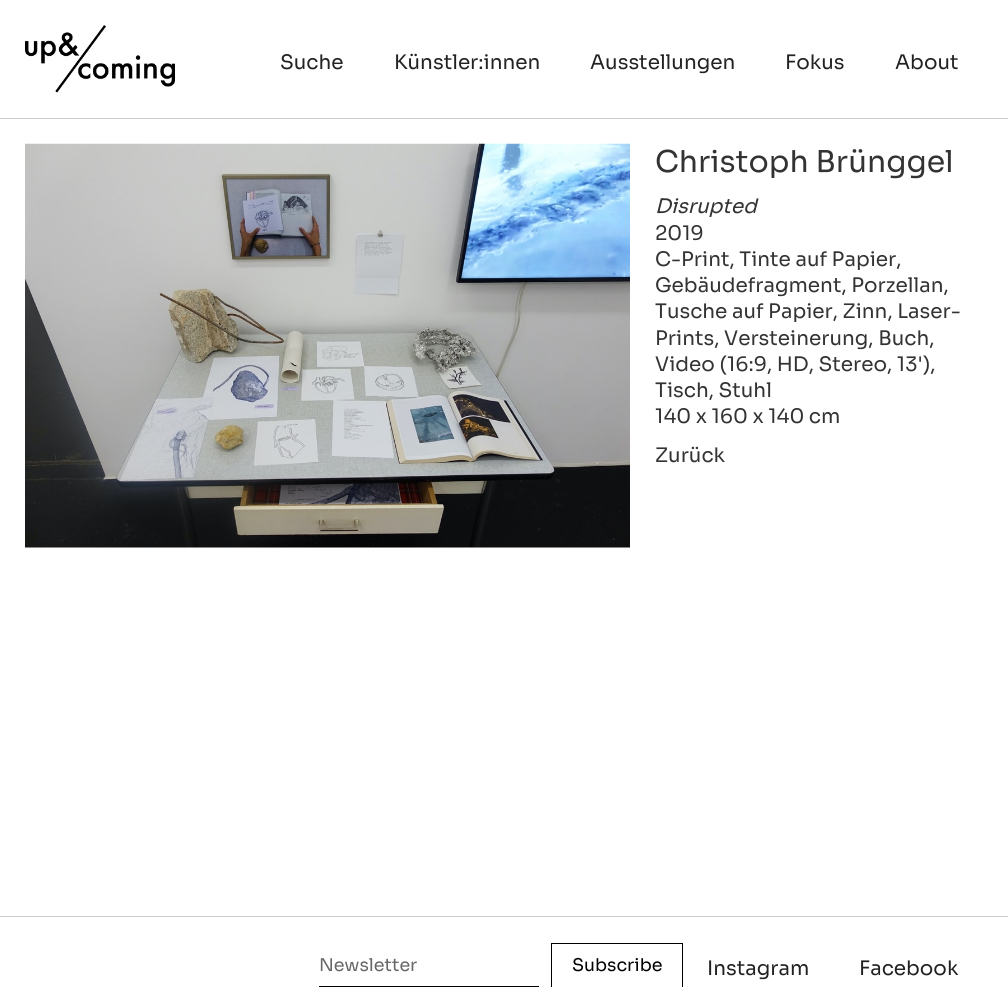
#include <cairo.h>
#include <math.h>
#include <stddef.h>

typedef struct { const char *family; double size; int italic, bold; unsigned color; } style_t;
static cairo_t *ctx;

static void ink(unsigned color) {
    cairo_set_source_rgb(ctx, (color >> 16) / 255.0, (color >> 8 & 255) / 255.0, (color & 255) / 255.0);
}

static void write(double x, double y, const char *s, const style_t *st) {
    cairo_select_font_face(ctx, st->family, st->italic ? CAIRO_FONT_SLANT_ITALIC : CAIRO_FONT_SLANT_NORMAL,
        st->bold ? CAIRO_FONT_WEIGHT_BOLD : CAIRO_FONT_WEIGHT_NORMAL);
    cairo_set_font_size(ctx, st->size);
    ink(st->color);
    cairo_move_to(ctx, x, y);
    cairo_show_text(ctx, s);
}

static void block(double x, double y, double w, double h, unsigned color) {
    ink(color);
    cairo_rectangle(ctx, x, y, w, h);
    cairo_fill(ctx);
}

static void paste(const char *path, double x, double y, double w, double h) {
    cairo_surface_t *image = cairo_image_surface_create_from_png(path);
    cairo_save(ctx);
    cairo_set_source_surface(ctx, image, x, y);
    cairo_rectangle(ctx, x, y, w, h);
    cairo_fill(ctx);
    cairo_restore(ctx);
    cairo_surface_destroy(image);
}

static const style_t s1 = {"Sora", 20, 0, 0, 0x222222};
static const style_t s2 = {"Sora", 30, 0, 0, 0x333333};
static const style_t s3 = {"Sora", 20, 1, 0, 0x333333};
static const style_t s4 = {"Sora", 20, 0, 0, 0x333333};
static const style_t s5 = {"Sora", 17.5, 0, 0, 0x666666};
static const style_t s6 = {"Sora", 17.5, 0, 0, 0x000000};

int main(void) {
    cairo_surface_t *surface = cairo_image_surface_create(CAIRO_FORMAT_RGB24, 1008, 987);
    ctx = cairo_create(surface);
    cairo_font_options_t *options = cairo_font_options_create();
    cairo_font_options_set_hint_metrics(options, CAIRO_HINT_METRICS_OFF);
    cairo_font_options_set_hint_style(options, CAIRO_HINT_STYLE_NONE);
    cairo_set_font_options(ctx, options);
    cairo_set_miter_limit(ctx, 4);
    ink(0xffffff);
    cairo_paint(ctx);
    paste("pic1.png", 25, 25, 150, 68);
    write(280, 69, "Suche", &s1);
    write(394, 69, "Künstler:innen", &s1);
    write(590, 69, "Ausstellungen", &s1);
    write(785, 69, "Fokus", &s1);
    write(895, 69, "About", &s1);
    block(0, 118, 1008, 1, 0xcccccc);
    paste("pic2.png", 25, 143, 605, 405);
    write(655, 172, "Christoph Brünggel", &s2);
    write(655, 213, "Disrupted", &s3);
    write(655, 240, "2019", &s4);
    write(655, 266, "C-Print, Tinte auf Papier,", &s4);
    write(655, 292, "Gebäudefragment, Porzellan,", &s4);
    write(655, 318, "Tusche auf Papier, Zinn, Laser-", &s4);
    write(655, 345, "Prints, Versteinerung, Buch,", &s4);
    write(655, 371, "Video (16:9, HD, Stereo, 13'),", &s4);
    write(655, 397, "Tisch, Stuhl", &s4);
    write(655, 423, "140 x 160 x 140 cm", &s4);
    write(655, 462, "Zurück", &s4);
    block(0, 916, 1008, 1, 0xcccccc);
    block(319, 986, 220, 1, 0x000000);
    write(319, 971, "Newsletter", &s5);
    cairo_rectangle(ctx, 551.5, 943.5, 131, 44);
    ink(0x000000);
    cairo_set_line_width(ctx, 1);
    cairo_stroke(ctx);
    write(572, 971, "Subscribe", &s6);
    write(707, 975, "Instagram", &s1);
    write(859, 975, "Facebook", &s1);
    cairo_surface_write_to_png(surface, "screenshot.png");
    cairo_font_options_destroy(options);
    cairo_destroy(ctx);
    cairo_surface_destroy(surface);
    return 0;
}
